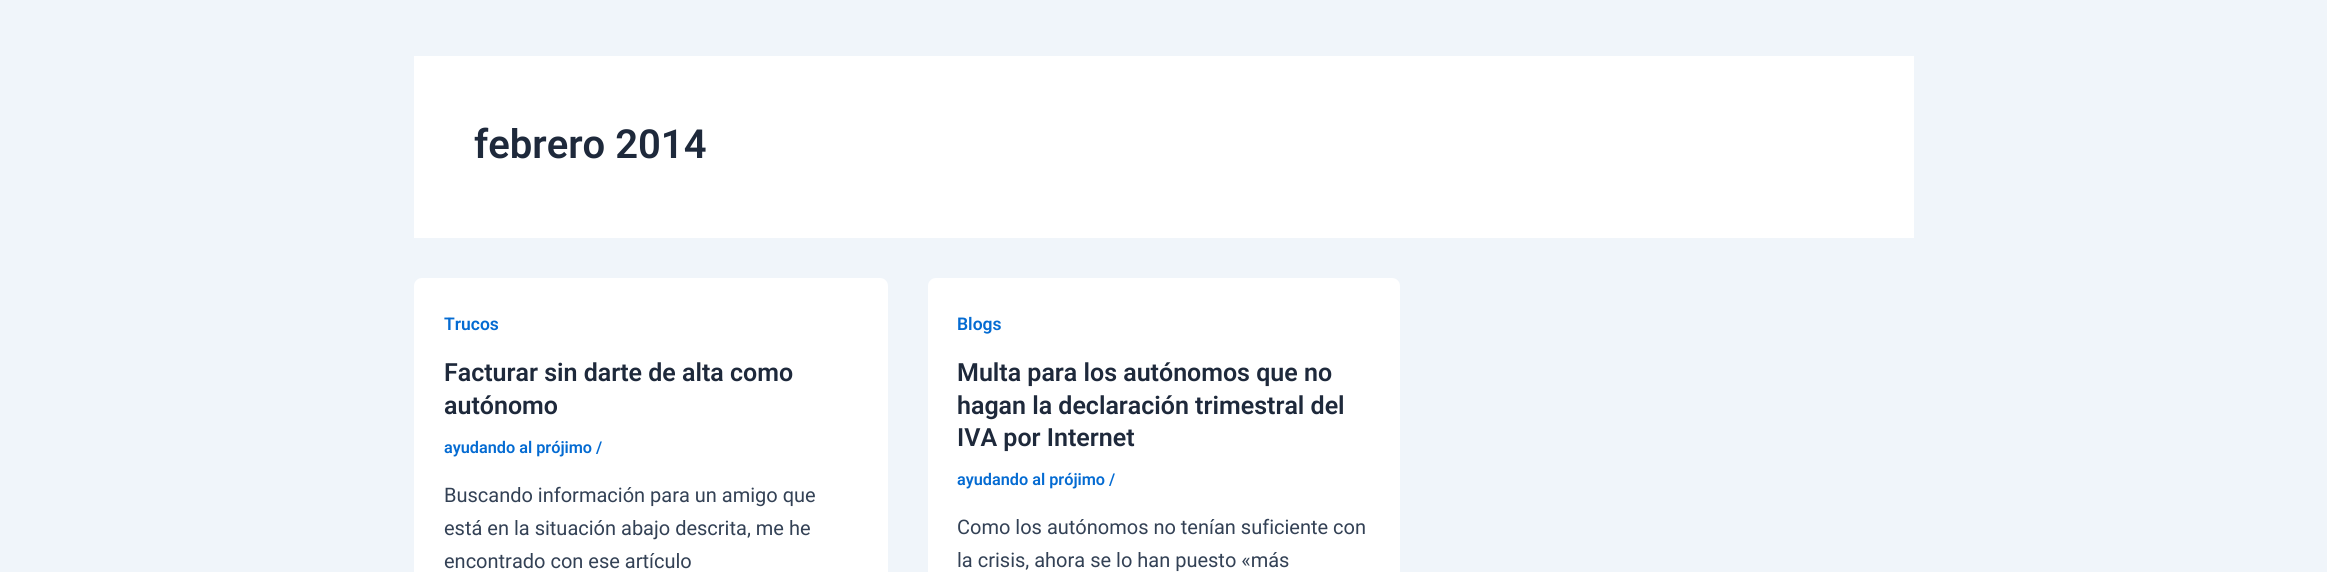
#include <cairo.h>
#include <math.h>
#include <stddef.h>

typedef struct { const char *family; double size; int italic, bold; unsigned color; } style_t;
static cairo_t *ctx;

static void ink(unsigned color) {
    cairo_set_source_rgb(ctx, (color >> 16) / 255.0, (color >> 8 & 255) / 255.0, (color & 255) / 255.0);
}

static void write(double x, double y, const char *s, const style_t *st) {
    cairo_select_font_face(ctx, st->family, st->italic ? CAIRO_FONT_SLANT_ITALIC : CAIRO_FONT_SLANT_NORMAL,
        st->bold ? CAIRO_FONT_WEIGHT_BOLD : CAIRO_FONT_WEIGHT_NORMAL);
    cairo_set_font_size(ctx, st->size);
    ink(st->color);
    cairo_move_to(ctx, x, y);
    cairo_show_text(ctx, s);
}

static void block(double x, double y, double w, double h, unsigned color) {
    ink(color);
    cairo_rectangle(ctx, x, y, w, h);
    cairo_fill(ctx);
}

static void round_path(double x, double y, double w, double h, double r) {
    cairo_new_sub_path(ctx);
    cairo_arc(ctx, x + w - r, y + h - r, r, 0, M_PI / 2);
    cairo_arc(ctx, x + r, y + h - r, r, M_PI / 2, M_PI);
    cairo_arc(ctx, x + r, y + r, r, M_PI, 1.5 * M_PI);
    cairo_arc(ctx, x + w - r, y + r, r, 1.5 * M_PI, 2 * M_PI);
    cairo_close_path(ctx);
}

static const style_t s1 = {"Roboto SemiBold", 40, 0, 0, 0x1e293b};
static const style_t s2 = {"Roboto SemiBold", 17.5, 0, 0, 0x046bd2};
static const style_t s3 = {"Roboto SemiBold", 25, 0, 0, 0x1e293b};
static const style_t s4 = {"Roboto SemiBold", 16.25, 0, 0, 0x046bd2};
static const style_t s5 = {"Roboto", 20, 0, 0, 0x334155};

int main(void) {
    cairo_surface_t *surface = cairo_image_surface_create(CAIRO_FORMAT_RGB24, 2327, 572);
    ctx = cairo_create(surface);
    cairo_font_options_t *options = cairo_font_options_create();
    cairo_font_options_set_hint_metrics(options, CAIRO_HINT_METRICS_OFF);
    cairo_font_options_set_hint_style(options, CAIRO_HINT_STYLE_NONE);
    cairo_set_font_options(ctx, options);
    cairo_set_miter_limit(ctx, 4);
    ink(0xf0f5fa);
    cairo_paint(ctx);
    block(414, 56, 1500, 182, 0xffffff);
    write(474, 158, "febrero 2014", &s1);
    ink(0xffffff);
    round_path(414, 278, 474, 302, 8);
    cairo_fill(ctx);
    write(444, 330, "Trucos", &s2);
    write(444, 381, "Facturar sin darte de alta como", &s3);
    write(444, 414, "autónomo", &s3);
    write(444, 453, "ayudando al prójimo /", &s4);
    write(444, 502, "Buscando información para un amigo que", &s5);
    write(444, 535, "está en la situación abajo descrita, me he", &s5);
    write(444, 568, "encontrado con ese artículo", &s5);
    ink(0xffffff);
    round_path(928, 278, 472, 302, 8);
    cairo_fill(ctx);
    write(957, 330, "Blogs", &s2);
    write(957, 381, "Multa para los autónomos que no", &s3);
    write(957, 414, "hagan la declaración trimestral del", &s3);
    write(957, 446, "IVA por Internet", &s3);
    write(957, 485, "ayudando al prójimo /", &s4);
    write(957, 534, "Como los autónomos no tenían suficiente con", &s5);
    write(957, 567, "la crisis, ahora se lo han puesto «más", &s5);
    cairo_surface_write_to_png(surface, "screenshot.png");
    cairo_font_options_destroy(options);
    cairo_destroy(ctx);
    cairo_surface_destroy(surface);
    return 0;
}
